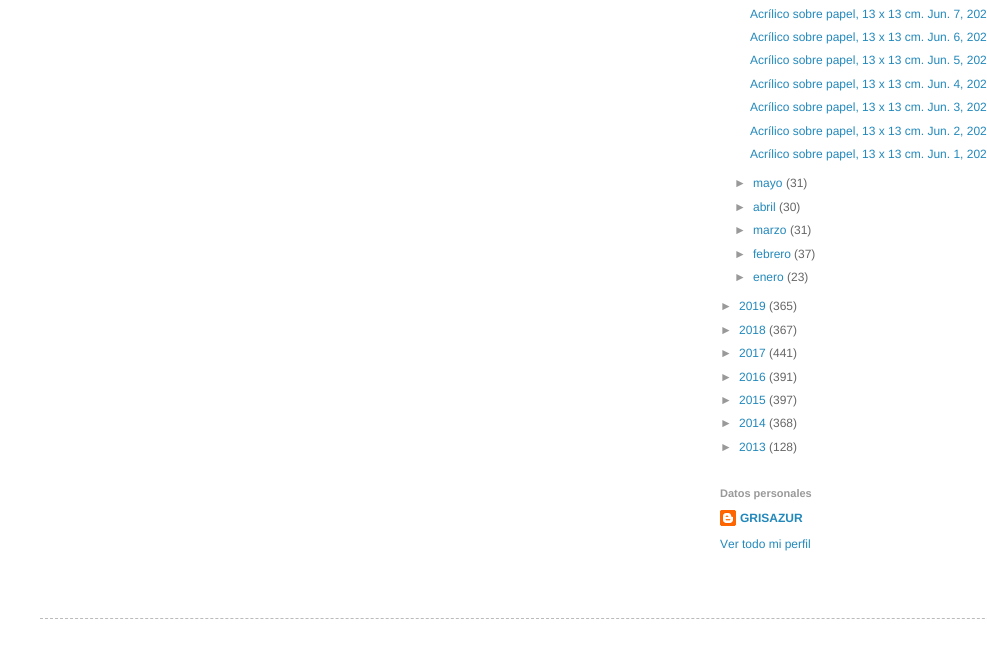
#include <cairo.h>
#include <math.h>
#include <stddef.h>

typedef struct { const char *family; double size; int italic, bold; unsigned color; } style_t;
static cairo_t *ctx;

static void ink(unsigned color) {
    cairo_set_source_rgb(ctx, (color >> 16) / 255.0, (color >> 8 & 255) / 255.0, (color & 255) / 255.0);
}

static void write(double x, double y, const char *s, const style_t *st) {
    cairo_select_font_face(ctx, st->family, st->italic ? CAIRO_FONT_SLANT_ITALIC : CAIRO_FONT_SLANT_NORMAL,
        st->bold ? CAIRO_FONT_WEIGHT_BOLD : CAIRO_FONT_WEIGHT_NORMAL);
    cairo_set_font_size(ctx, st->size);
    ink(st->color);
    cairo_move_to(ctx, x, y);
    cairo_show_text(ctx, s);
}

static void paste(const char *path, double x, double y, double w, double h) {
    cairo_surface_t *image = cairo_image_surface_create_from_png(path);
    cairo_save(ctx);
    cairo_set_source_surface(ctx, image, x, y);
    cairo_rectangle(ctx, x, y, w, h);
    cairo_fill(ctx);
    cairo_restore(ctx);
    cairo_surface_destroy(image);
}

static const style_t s1 = {"Liberation Sans", 12, 0, 0, 0x2288bb};
static const style_t s2 = {"Liberation Sans", 12, 0, 0, 0x999999};
static const style_t s3 = {"Liberation Sans", 12, 0, 0, 0x666666};
static const style_t s4 = {"Liberation Sans", 11, 0, 1, 0x999999};
static const style_t s5 = {"Liberation Sans", 12, 0, 1, 0x2288bb};

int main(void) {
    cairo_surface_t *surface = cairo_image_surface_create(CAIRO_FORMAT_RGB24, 987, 667);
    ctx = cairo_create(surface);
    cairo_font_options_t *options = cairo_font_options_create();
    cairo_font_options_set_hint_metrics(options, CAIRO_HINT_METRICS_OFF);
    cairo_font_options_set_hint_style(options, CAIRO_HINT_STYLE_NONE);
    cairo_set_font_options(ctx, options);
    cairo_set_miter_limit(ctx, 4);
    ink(0xffffff);
    cairo_paint(ctx);
    write(750, 18, "Acrílico sobre papel, 13 x 13 cm. Jun. 7, 202", &s1);
    write(750, 41, "Acrílico sobre papel, 13 x 13 cm. Jun. 6, 202", &s1);
    write(750, 64, "Acrílico sobre papel, 13 x 13 cm. Jun. 5, 202", &s1);
    write(750, 88, "Acrílico sobre papel, 13 x 13 cm. Jun. 4, 202", &s1);
    write(750, 111, "Acrílico sobre papel, 13 x 13 cm. Jun. 3, 202", &s1);
    write(750, 135, "Acrílico sobre papel, 13 x 13 cm. Jun. 2, 202", &s1);
    write(750, 158, "Acrílico sobre papel, 13 x 13 cm. Jun. 1, 202", &s1);
    write(734, 187, "►", &s2);
    write(753, 187, "mayo", &s1);
    write(786, 187, "(31)", &s3);
    write(734, 211, "►", &s2);
    write(753, 211, "abril", &s1);
    write(779, 211, "(30)", &s3);
    write(734, 234, "►", &s2);
    write(753, 234, "marzo", &s1);
    write(790, 234, "(31)", &s3);
    write(734, 258, "►", &s2);
    write(753, 258, "febrero", &s1);
    write(794, 258, "(37)", &s3);
    write(734, 281, "►", &s2);
    write(753, 281, "enero", &s1);
    write(787, 281, "(23)", &s3);
    write(720, 310, "►", &s2);
    write(739, 310, "2019", &s1);
    write(769, 310, "(365)", &s3);
    write(720, 334, "►", &s2);
    write(739, 334, "2018", &s1);
    write(769, 334, "(367)", &s3);
    write(720, 357, "►", &s2);
    write(739, 357, "2017", &s1);
    write(769, 357, "(441)", &s3);
    write(720, 381, "►", &s2);
    write(739, 381, "2016", &s1);
    write(769, 381, "(391)", &s3);
    write(720, 404, "►", &s2);
    write(739, 404, "2015", &s1);
    write(769, 404, "(397)", &s3);
    write(720, 427, "►", &s2);
    write(739, 427, "2014", &s1);
    write(769, 427, "(368)", &s3);
    write(720, 451, "►", &s2);
    write(739, 451, "2013", &s1);
    write(769, 451, "(128)", &s3);
    write(720, 497, "Datos personales", &s4);
    paste("pic1.png", 720, 510, 16, 16);
    write(740, 522, "GRISAZUR", &s5);
    write(720, 548, "Ver todo mi perfil", &s1);
    cairo_new_path(ctx);
    cairo_move_to(ctx, 40, 618.5);
    cairo_line_to(ctx, 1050, 618.5);
    ink(0xbbbbbb);
    cairo_set_line_width(ctx, 1);
    cairo_set_dash(ctx, (double[]){3, 2.01}, 2, 0);
    cairo_stroke(ctx);
    cairo_surface_write_to_png(surface, "screenshot.png");
    cairo_font_options_destroy(options);
    cairo_destroy(ctx);
    cairo_surface_destroy(surface);
    return 0;
}
